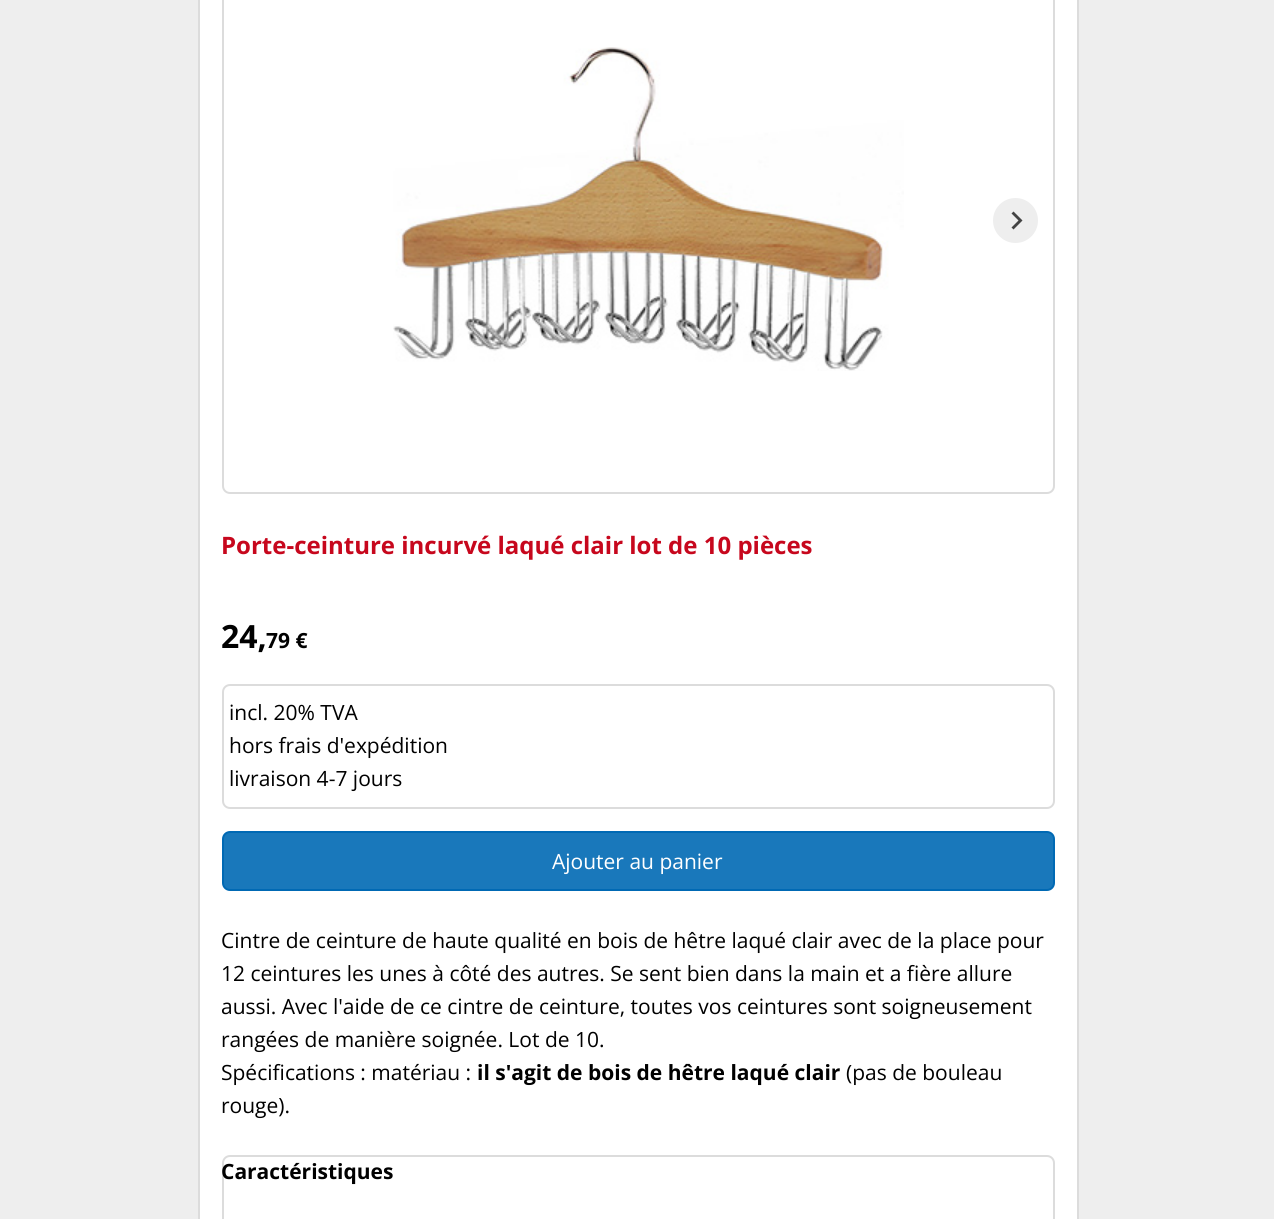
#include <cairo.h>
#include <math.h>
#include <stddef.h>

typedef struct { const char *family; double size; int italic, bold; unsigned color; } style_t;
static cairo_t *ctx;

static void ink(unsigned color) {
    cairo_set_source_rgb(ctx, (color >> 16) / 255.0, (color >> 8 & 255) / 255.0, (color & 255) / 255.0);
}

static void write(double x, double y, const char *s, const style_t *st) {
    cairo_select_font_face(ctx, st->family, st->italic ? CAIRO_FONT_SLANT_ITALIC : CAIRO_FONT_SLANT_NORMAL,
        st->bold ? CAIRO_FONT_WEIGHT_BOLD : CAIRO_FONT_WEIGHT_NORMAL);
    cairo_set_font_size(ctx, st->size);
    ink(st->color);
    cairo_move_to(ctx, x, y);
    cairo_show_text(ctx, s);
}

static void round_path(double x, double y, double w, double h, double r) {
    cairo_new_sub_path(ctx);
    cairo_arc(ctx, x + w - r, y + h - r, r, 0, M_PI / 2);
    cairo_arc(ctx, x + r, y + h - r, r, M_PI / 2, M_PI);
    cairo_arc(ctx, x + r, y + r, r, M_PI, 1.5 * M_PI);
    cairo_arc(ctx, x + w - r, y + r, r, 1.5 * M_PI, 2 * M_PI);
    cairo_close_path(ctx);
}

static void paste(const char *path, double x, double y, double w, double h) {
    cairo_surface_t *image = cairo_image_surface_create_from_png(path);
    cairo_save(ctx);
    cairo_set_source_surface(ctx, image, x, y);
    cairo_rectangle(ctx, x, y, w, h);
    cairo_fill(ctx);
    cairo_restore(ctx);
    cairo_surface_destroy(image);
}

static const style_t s1 = {"Open Sans", 24, 0, 1, 0xc7071d};
static const style_t s2 = {"Open Sans", 32, 0, 1, 0x000000};
static const style_t s3 = {"Open Sans", 21, 0, 1, 0x000000};
static const style_t s4 = {"Open Sans", 21, 0, 0, 0x000000};
static const style_t s5 = {"Open Sans", 21, 0, 0, 0xffffff};

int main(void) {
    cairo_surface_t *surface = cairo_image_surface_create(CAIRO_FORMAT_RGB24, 1274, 1219);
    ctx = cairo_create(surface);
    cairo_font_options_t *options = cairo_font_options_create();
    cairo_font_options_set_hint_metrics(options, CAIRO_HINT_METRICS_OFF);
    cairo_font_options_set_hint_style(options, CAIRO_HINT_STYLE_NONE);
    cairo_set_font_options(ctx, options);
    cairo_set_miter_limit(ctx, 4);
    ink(0xeeeeee);
    cairo_paint(ctx);
    ink(0xffffff);
    cairo_rectangle(ctx, 199, -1, 879, 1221);
    cairo_fill_preserve(ctx);
    ink(0xdcdcdc);
    cairo_stroke(ctx);
    round_path(223, -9, 831, 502, 7);
    cairo_stroke(ctx);
    paste("pic1.png", 393, 47, 511, 324);
    ink(0xeeeeee);
    cairo_arc(ctx, 1015.5, 220.5, 22.5, 0, 2 * M_PI);
    cairo_fill(ctx);
    ink(0x434343);
    cairo_new_path(ctx);
    cairo_move_to(ctx, 1013.5, 229.5);
    cairo_line_to(ctx, 1011.5, 227.5);
    cairo_line_to(ctx, 1018.5, 220.5);
    cairo_line_to(ctx, 1011.5, 213.5);
    cairo_line_to(ctx, 1013.5, 211.5);
    cairo_line_to(ctx, 1022.5, 220.5);
    cairo_close_path(ctx);
    cairo_fill(ctx);
    write(221, 554, "Porte-ceinture incurvé laqué clair lot de 10 pièces", &s1);
    write(221, 648, "24,", &s2);
    write(266, 648, "79 €", &s3);
    round_path(223, 685, 831, 123, 7);
    ink(0xdcdcdc);
    cairo_stroke(ctx);
    write(229, 720, "incl. 20% TVA", &s4);
    write(229, 753, "hors frais d'expédition", &s4);
    write(229, 786, "livraison 4-7 jours", &s4);
    ink(0x1978bb);
    round_path(223, 832, 831, 58, 7);
    cairo_fill_preserve(ctx);
    ink(0x0069b4);
    cairo_stroke(ctx);
    write(552, 869, "Ajouter au panier", &s5);
    write(221, 948, "Cintre de ceinture de haute qualité en bois de hêtre laqué clair avec de la place pour", &s4);
    write(221, 981, "12 ceintures les unes à côté des autres. Se sent bien dans la main et a fière allure", &s4);
    write(221, 1014, "aussi. Avec l'aide de ce cintre de ceinture, toutes vos ceintures sont soigneusement", &s4);
    write(221, 1047, "rangées de manière soignée. Lot de 10.", &s4);
    write(221, 1080, "Spécifications : matériau :", &s4);
    write(477, 1080, "il s'agit de bois de hêtre laqué clair", &s3);
    write(846, 1080, "(pas de bouleau", &s4);
    write(221, 1113, "rouge).", &s4);
    round_path(223, 1156, 831, 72, 7);
    ink(0xdcdcdc);
    cairo_stroke(ctx);
    write(221, 1179, "Caractéristiques", &s3);
    cairo_surface_write_to_png(surface, "screenshot.png");
    cairo_font_options_destroy(options);
    cairo_destroy(ctx);
    cairo_surface_destroy(surface);
    return 0;
}
